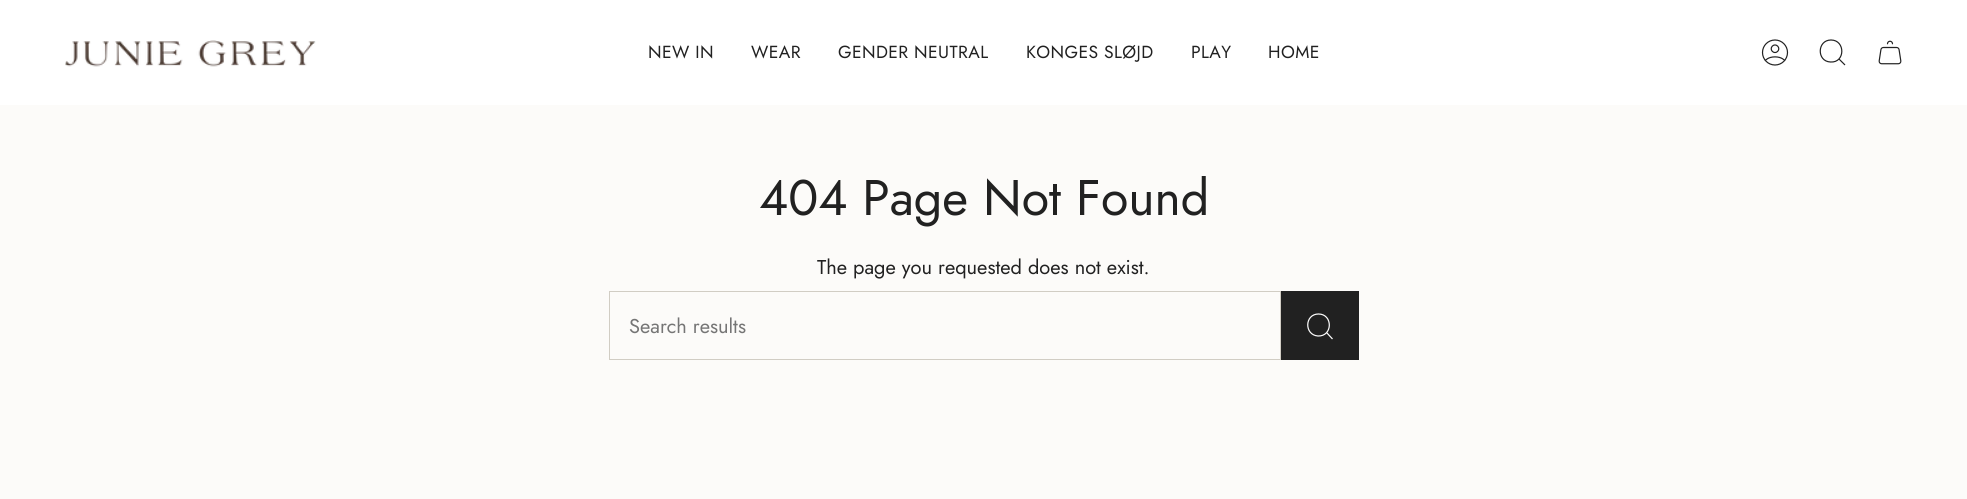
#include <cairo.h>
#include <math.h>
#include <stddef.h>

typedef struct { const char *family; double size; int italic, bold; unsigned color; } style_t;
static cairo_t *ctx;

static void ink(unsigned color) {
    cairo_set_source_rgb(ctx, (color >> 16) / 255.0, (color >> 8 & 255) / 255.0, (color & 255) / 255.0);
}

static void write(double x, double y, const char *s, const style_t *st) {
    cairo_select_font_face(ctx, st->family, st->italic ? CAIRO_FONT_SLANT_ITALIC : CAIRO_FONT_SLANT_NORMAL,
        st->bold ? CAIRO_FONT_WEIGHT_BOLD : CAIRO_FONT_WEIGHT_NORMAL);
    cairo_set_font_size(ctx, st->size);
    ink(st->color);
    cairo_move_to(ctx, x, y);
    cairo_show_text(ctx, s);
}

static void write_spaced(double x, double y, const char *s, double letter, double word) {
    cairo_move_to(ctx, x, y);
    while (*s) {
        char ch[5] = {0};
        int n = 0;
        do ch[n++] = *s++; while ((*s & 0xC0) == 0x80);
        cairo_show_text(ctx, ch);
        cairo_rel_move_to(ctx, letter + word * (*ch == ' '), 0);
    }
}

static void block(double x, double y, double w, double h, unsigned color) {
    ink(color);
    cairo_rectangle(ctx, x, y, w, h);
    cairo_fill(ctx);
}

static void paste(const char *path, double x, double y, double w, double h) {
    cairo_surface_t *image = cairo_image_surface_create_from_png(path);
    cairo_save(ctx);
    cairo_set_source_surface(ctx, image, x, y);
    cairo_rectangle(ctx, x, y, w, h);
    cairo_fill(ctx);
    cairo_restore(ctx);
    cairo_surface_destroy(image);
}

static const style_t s1 = {"Jost", 50, 0, 0, 0x212121};
static const style_t s2 = {"Jost", 20, 0, 0, 0x212121};
static const style_t s3 = {"Jost", 20, 0, 0, 0x757575};

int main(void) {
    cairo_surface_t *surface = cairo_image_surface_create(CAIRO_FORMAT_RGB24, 1967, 499);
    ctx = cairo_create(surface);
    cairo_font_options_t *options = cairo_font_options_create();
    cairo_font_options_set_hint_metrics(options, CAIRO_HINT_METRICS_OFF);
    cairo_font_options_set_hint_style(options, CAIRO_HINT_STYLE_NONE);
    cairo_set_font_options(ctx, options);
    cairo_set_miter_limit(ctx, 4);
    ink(0xfcfbf9);
    cairo_paint(ctx);
    block(0, 0, 1967, 105, 0xffffff);
    paste("pic1.png", 65, 40, 251, 27);
    cairo_select_font_face(ctx, "Jost", CAIRO_FONT_SLANT_NORMAL, CAIRO_FONT_WEIGHT_NORMAL);
    cairo_set_font_size(ctx, 17.5);
    ink(0x212121);
    write_spaced(648, 58, "NEW IN", 0.4, 0);
    write_spaced(751, 58, "WEAR", 0.4, 0);
    write_spaced(838, 58, "GENDER NEUTRAL", 0.4, 0);
    write_spaced(1026, 58, "KONGES SLØJD", 0.4, 0);
    write_spaced(1191, 58, "PLAY", 0.4, 0);
    write_spaced(1268, 58, "HOME", 0.4, 0);
    paste("pic2.png", 1761, 39, 28, 27);
    cairo_new_path(ctx);
    cairo_move_to(ctx, 1831, 40);
    cairo_curve_to(ctx, 1845.5, 40, 1845.5, 63, 1830.5, 62);
    cairo_curve_to(ctx, 1816.5, 61.5, 1817, 40, 1831, 40);
    cairo_close_path(ctx);
    cairo_move_to(ctx, 1839, 59);
    cairo_line_to(ctx, 1845, 65);
    cairo_set_line_width(ctx, 1.2);
    cairo_stroke(ctx);
    paste("pic3.png", 1878, 40, 24, 25);
    write(759, 215, "404 Page Not Found", &s1);
    write(817, 274, "The page you requested does not exist.", &s2);
    cairo_rectangle(ctx, 609.5, 291.5, 671, 68);
    ink(0xd1cdc4);
    cairo_set_line_width(ctx, 1);
    cairo_stroke(ctx);
    write(629, 333, "Search results", &s3);
    block(1281, 291, 78, 69, 0x212121);
    cairo_new_path(ctx);
    cairo_move_to(ctx, 1318.5, 314);
    cairo_curve_to(ctx, 1333, 314, 1333, 336.5, 1318, 336);
    cairo_curve_to(ctx, 1304, 335, 1304.5, 314, 1318.5, 314);
    cairo_close_path(ctx);
    cairo_move_to(ctx, 1326.5, 332.5);
    cairo_line_to(ctx, 1332.5, 339);
    ink(0xffffff);
    cairo_set_line_width(ctx, 1.2);
    cairo_stroke(ctx);
    cairo_surface_write_to_png(surface, "screenshot.png");
    cairo_font_options_destroy(options);
    cairo_destroy(ctx);
    cairo_surface_destroy(surface);
    return 0;
}
